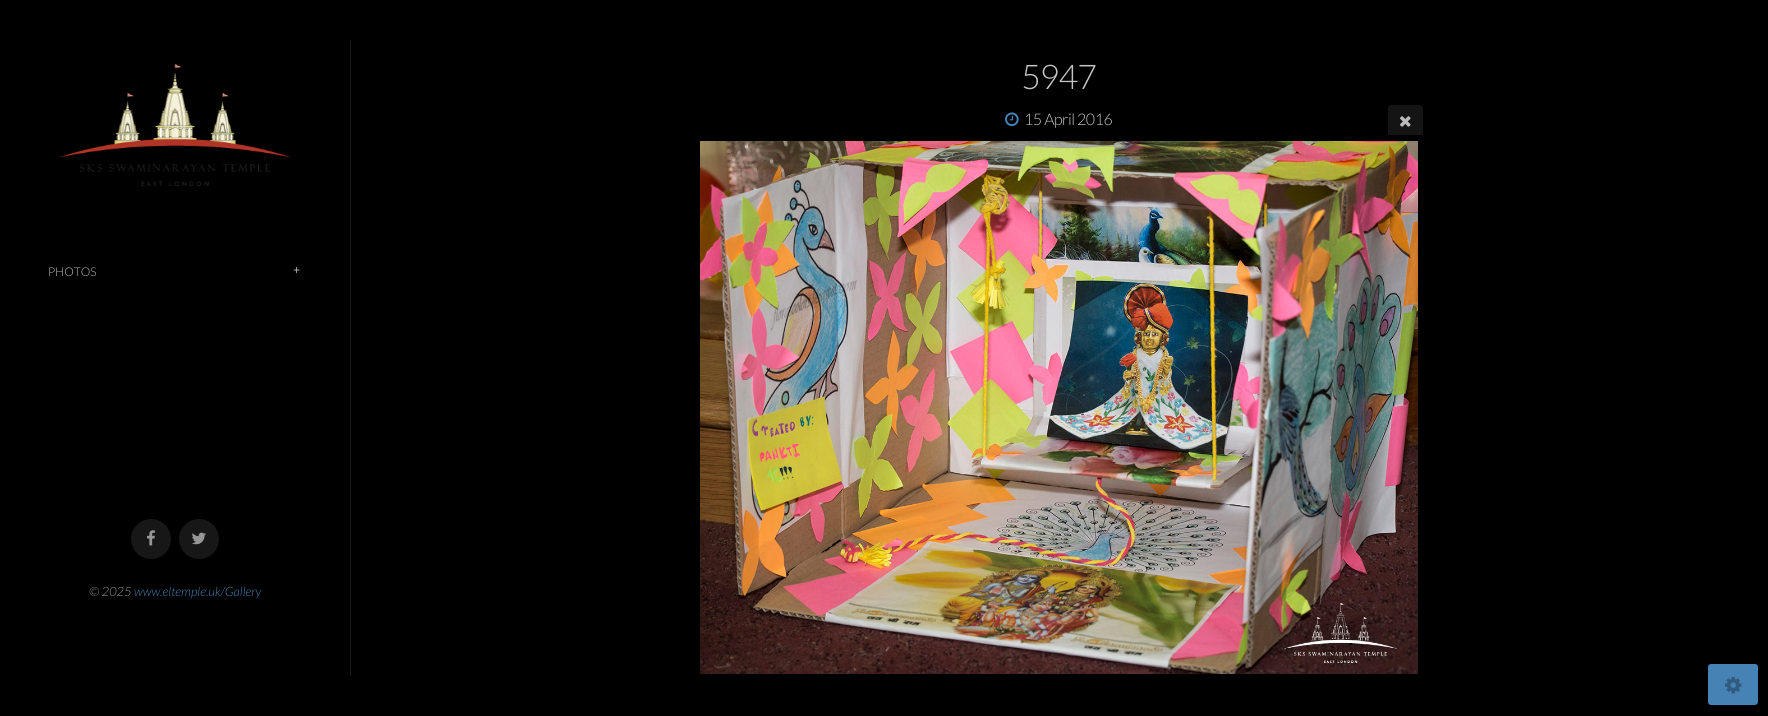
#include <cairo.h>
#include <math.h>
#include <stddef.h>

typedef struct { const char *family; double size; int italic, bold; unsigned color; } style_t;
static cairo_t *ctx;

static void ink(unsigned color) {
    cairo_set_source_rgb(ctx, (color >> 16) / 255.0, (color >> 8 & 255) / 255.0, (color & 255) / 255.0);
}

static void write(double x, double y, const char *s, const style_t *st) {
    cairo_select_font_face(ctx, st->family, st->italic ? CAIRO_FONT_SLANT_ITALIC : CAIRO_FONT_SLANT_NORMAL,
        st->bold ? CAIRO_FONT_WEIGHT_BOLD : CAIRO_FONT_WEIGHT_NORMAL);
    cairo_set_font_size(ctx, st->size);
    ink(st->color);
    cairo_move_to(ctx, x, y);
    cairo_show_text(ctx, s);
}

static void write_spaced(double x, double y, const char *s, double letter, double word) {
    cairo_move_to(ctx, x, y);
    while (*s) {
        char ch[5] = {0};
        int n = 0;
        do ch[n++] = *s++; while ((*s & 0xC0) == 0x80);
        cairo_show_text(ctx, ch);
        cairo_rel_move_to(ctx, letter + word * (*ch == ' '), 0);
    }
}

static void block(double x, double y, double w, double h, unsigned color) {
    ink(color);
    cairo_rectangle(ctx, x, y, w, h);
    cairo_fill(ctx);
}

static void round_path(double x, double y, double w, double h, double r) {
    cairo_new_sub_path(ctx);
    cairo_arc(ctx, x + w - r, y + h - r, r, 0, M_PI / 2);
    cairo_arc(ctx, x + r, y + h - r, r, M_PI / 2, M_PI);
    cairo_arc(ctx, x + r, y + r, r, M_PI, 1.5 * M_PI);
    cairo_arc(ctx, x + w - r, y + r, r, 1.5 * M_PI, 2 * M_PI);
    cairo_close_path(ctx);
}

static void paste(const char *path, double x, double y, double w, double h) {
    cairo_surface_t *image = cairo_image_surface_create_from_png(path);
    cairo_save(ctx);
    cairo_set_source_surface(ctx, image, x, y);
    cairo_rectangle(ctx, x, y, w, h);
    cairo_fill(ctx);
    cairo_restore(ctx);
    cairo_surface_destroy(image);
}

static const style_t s1 = {"Lato Light", 12, 0, 0, 0xbbbbbb};
static const style_t s2 = {"Liberation Mono", 12, 0, 0, 0xbbbbbb};
static const style_t s3 = {"Lato Light", 12.75, 1, 0, 0x969696};
static const style_t s4 = {"Lato Light", 12.75, 1, 0, 0x4682b4};

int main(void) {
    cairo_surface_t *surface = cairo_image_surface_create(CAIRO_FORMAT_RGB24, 1768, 716);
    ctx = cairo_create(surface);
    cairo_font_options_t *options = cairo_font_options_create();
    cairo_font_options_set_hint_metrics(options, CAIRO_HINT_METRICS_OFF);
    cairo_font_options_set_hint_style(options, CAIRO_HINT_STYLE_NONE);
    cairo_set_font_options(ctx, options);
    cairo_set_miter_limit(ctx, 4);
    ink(0x000000);
    cairo_paint(ctx);
    cairo_select_font_face(ctx, "Lato Light", CAIRO_FONT_SLANT_NORMAL, CAIRO_FONT_WEIGHT_NORMAL);
    cairo_set_font_size(ctx, 34);
    ink(0xc5c5c5);
    write_spaced(1021, 89, "5947", -1, 0);
    paste("pic1.png", 1005, 112, 14, 15);
    cairo_set_font_size(ctx, 16);
    write_spaced(1024, 125, "15 April 2016", -0.5, 0);
    ink(0x141414);
    cairo_new_path(ctx);
    cairo_move_to(ctx, 1391, 105);
    cairo_line_to(ctx, 1420, 105);
    cairo_curve_to(ctx, 1421.5, 105, 1423, 106.5, 1423, 108);
    cairo_line_to(ctx, 1423, 135);
    cairo_line_to(ctx, 1388, 135);
    cairo_line_to(ctx, 1388, 108);
    cairo_curve_to(ctx, 1388, 106.5, 1389.5, 105, 1391, 105);
    cairo_close_path(ctx);
    cairo_fill(ctx);
    paste("pic2.png", 1400, 116, 11, 11);
    paste("pic3.png", 700, 141, 718, 533);
    paste("pic4.png", 60, 64, 230, 122);
    write(48, 276, "PHOTOS", &s1);
    write(293, 274, "+", &s2);
    ink(0x171717);
    cairo_new_path(ctx);
    cairo_arc(ctx, 151, 539, 20, 0, 2 * M_PI);
    cairo_fill(ctx);
    paste("pic5.png", 147, 530, 8, 16);
    cairo_arc(ctx, 199, 539, 20, 0, 2 * M_PI);
    cairo_fill(ctx);
    paste("pic6.png", 192, 532, 14, 13);
    write(89, 596, "© 2025", &s3);
    write(134, 596, "www.eltemple.uk/Gallery", &s4);
    block(350, 40, 1, 636, 0x1a1a1a);
    ink(0x4682b4);
    round_path(1708, 664, 50, 41, 3);
    cairo_fill(ctx);
    paste("pic7.png", 1725, 677, 17, 17);
    cairo_surface_write_to_png(surface, "screenshot.png");
    cairo_font_options_destroy(options);
    cairo_destroy(ctx);
    cairo_surface_destroy(surface);
    return 0;
}
